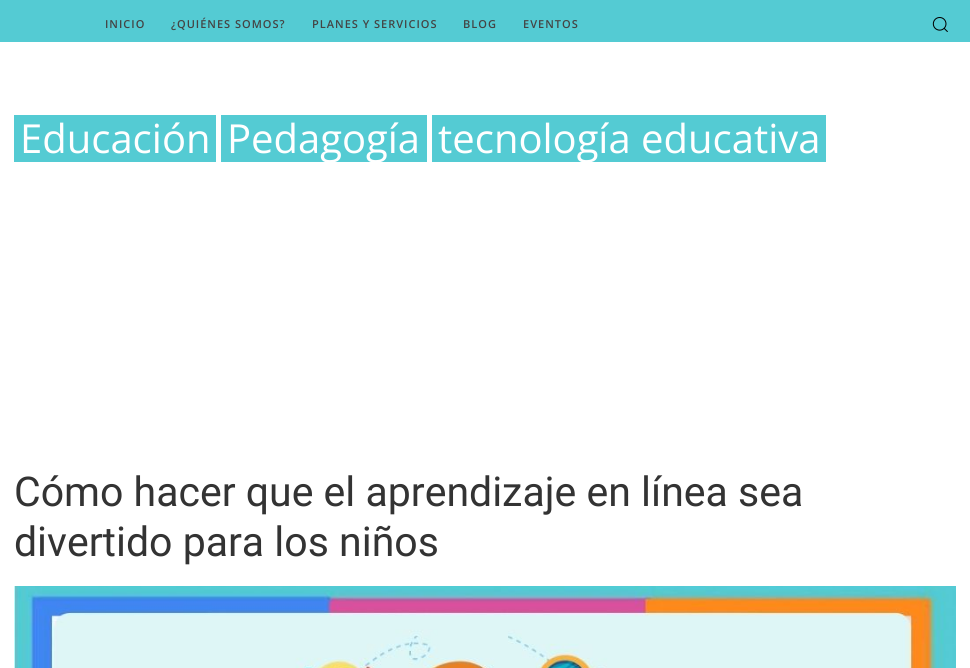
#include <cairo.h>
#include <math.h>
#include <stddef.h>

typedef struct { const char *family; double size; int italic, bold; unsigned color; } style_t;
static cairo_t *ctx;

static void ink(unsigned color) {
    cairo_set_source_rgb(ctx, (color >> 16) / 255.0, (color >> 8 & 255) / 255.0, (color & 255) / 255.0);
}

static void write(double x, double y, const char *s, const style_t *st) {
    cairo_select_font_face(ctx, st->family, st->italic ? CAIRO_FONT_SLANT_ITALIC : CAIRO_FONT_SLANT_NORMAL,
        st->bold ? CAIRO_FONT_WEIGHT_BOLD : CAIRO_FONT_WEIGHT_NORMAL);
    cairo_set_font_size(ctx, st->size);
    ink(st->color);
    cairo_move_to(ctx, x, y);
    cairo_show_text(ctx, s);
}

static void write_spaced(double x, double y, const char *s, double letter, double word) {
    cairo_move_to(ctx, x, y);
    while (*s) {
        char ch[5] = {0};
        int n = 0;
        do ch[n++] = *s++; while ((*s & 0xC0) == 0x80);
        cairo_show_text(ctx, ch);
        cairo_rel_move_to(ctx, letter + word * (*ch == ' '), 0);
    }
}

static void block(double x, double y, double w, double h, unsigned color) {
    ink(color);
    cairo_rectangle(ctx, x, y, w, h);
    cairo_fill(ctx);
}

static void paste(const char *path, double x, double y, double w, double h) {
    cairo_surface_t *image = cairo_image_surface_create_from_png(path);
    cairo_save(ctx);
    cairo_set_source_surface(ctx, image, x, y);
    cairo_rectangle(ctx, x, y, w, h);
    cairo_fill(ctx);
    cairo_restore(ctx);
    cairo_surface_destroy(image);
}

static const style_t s1 = {"Open Sans", 40, 0, 0, 0xffffff};
static const style_t s2 = {"Roboto", 41, 0, 0, 0x333333};

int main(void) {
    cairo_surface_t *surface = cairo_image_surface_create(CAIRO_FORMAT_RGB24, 970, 668);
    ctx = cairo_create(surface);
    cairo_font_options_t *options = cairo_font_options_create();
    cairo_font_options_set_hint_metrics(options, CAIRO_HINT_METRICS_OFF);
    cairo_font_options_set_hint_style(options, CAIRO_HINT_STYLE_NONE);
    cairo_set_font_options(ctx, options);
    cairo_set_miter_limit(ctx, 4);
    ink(0xffffff);
    cairo_paint(ctx);
    block(0, 0, 970, 42, 0x54cbd3);
    cairo_select_font_face(ctx, "Open Sans SemiBold", CAIRO_FONT_SLANT_NORMAL, CAIRO_FONT_WEIGHT_NORMAL);
    cairo_set_font_size(ctx, 11);
    ink(0x444444);
    write_spaced(105, 28, "INICIO", 1, 0);
    write_spaced(171, 28, "¿QUIÉNES SOMOS?", 1, 0);
    write_spaced(312, 28, "PLANES Y SERVICIOS", 1, 0);
    write_spaced(463, 28, "BLOG", 1, 0);
    write_spaced(523, 28, "EVENTOS", 1, 0);
    paste("pic1.png", 932, 17, 16, 15);
    block(14, 115, 202, 47, 0x54cbd3);
    write(20, 153, "Educación", &s1);
    block(221, 115, 206, 47, 0x54cbd3);
    write(227, 153, "Pedagogía", &s1);
    block(432, 115, 394, 47, 0x54cbd3);
    write(438, 153, "tecnología educativa", &s1);
    write(14, 506, "Cómo hacer que el aprendizaje en línea sea", &s2);
    write(14, 556, "divertido para los niños", &s2);
    paste("pic2.png", 14, 586, 942, 82);
    cairo_surface_write_to_png(surface, "screenshot.png");
    cairo_font_options_destroy(options);
    cairo_destroy(ctx);
    cairo_surface_destroy(surface);
    return 0;
}
